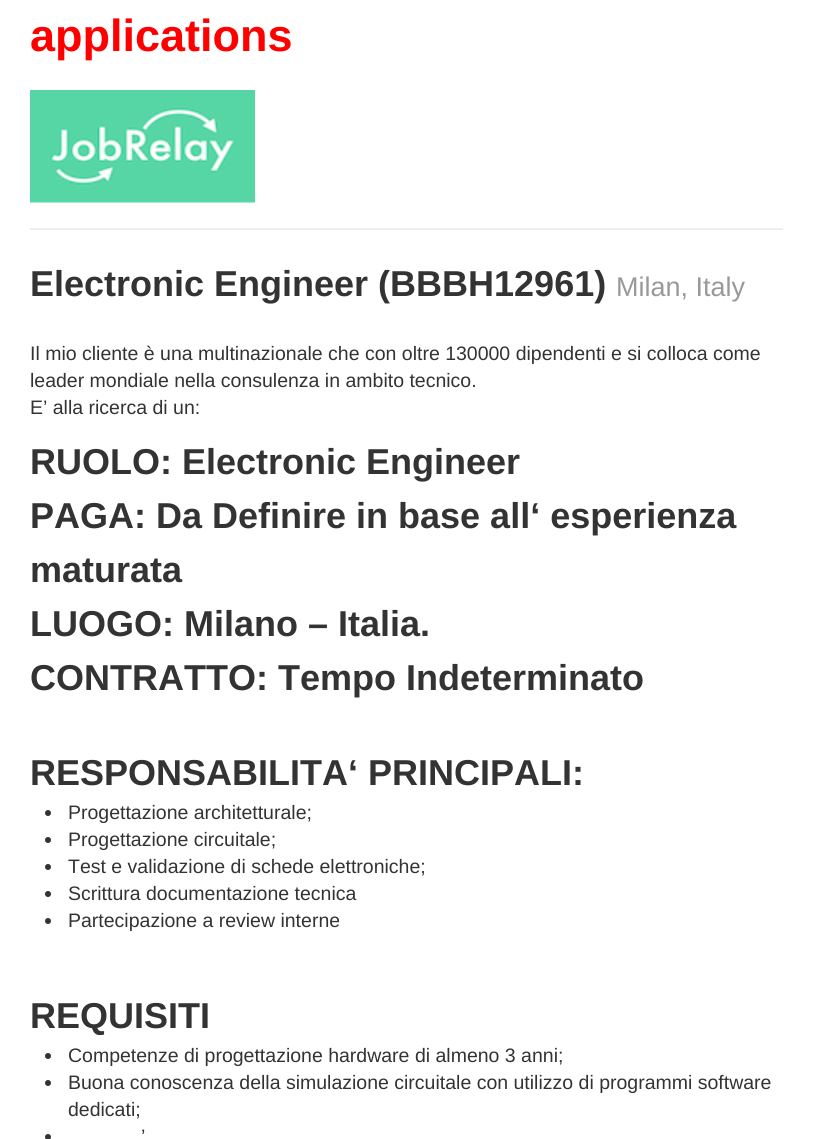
#include <cairo.h>
#include <math.h>
#include <stddef.h>

typedef struct { const char *family; double size; int italic, bold; unsigned color; } style_t;
static cairo_t *ctx;

static void ink(unsigned color) {
    cairo_set_source_rgb(ctx, (color >> 16) / 255.0, (color >> 8 & 255) / 255.0, (color & 255) / 255.0);
}

static void write(double x, double y, const char *s, const style_t *st) {
    cairo_select_font_face(ctx, st->family, st->italic ? CAIRO_FONT_SLANT_ITALIC : CAIRO_FONT_SLANT_NORMAL,
        st->bold ? CAIRO_FONT_WEIGHT_BOLD : CAIRO_FONT_WEIGHT_NORMAL);
    cairo_set_font_size(ctx, st->size);
    ink(st->color);
    cairo_move_to(ctx, x, y);
    cairo_show_text(ctx, s);
}

static void block(double x, double y, double w, double h, unsigned color) {
    ink(color);
    cairo_rectangle(ctx, x, y, w, h);
    cairo_fill(ctx);
}

static void paste(const char *path, double x, double y, double w, double h) {
    cairo_surface_t *image = cairo_image_surface_create_from_png(path);
    cairo_save(ctx);
    cairo_set_source_surface(ctx, image, x, y);
    cairo_rectangle(ctx, x, y, w, h);
    cairo_fill(ctx);
    cairo_restore(ctx);
    cairo_surface_destroy(image);
}

static const style_t s1 = {"Liberation Sans", 45, 0, 1, 0xff0000};
static const style_t s2 = {"Liberation Sans", 36, 0, 1, 0x333333};
static const style_t s3 = {"Liberation Sans", 27, 0, 0, 0x999999};
static const style_t s4 = {"Liberation Sans", 19.5, 0, 0, 0x333333};

int main(void) {
    cairo_surface_t *surface = cairo_image_surface_create(CAIRO_FORMAT_RGB24, 813, 1139);
    ctx = cairo_create(surface);
    cairo_font_options_t *options = cairo_font_options_create();
    cairo_font_options_set_hint_metrics(options, CAIRO_HINT_METRICS_OFF);
    cairo_font_options_set_hint_style(options, CAIRO_HINT_STYLE_NONE);
    cairo_set_font_options(ctx, options);
    cairo_set_miter_limit(ctx, 4);
    ink(0xffffff);
    cairo_paint(ctx);
    write(30, 51, "applications", &s1);
    block(30, 228, 753, 2, 0xeeeeee);
    paste("pic1.png", 30, 90, 225, 113);
    write(30, 296, "Electronic Engineer (BBBH12961)", &s2);
    write(616, 296, "Milan, Italy", &s3);
    write(30, 360, "Il mio cliente è una multinazionale che con oltre 130000 dipendenti e si colloca come", &s4);
    write(30, 387, "leader mondiale nella consulenza in ambito tecnico.", &s4);
    write(30, 414, "E’ alla ricerca di un:", &s4);
    write(30, 474, "RUOLO: Electronic Engineer", &s2);
    write(30, 528, "PAGA: Da Definire in base all‘ esperienza", &s2);
    write(30, 582, "maturata", &s2);
    write(30, 636, "LUOGO: Milano – Italia.", &s2);
    write(30, 690, "CONTRATTO: Tempo Indeterminato", &s2);
    write(30, 785, "RESPONSABILITA‘ PRINCIPALI:", &s2);
    cairo_new_path(ctx);
    cairo_arc(ctx, 48, 813, 3, 0, 2 * M_PI);
    cairo_fill(ctx);
    write(68, 819, "Progettazione architetturale;", &s4);
    cairo_new_path(ctx);
    cairo_arc(ctx, 48, 840, 3, 0, 2 * M_PI);
    cairo_fill(ctx);
    write(68, 846, "Progettazione circuitale;", &s4);
    cairo_new_path(ctx);
    cairo_arc(ctx, 48, 867, 3, 0, 2 * M_PI);
    cairo_fill(ctx);
    write(68, 873, "Test e validazione di schede elettroniche;", &s4);
    cairo_new_path(ctx);
    cairo_arc(ctx, 48, 894, 3, 0, 2 * M_PI);
    cairo_fill(ctx);
    write(68, 900, "Scrittura documentazione tecnica", &s4);
    cairo_new_path(ctx);
    cairo_arc(ctx, 48, 921, 3, 0, 2 * M_PI);
    cairo_fill(ctx);
    write(68, 927, "Partecipazione a review interne", &s4);
    write(30, 1028, "REQUISITI", &s2);
    cairo_new_path(ctx);
    cairo_arc(ctx, 48, 1056, 3, 0, 2 * M_PI);
    cairo_fill(ctx);
    write(68, 1062, "Competenze di progettazione hardware di almeno 3 anni;", &s4);
    cairo_new_path(ctx);
    cairo_arc(ctx, 48, 1083, 3, 0, 2 * M_PI);
    cairo_fill(ctx);
    write(68, 1089, "Buona conoscenza della simulazione circuitale con utilizzo di programmi software", &s4);
    write(68, 1116, "dedicati;", &s4);
    write(141, 1143, "’", &s4);
    cairo_new_path(ctx);
    cairo_arc(ctx, 48, 1137, 3, 0, 2 * M_PI);
    cairo_fill(ctx);
    cairo_surface_write_to_png(surface, "screenshot.png");
    cairo_font_options_destroy(options);
    cairo_destroy(ctx);
    cairo_surface_destroy(surface);
    return 0;
}
